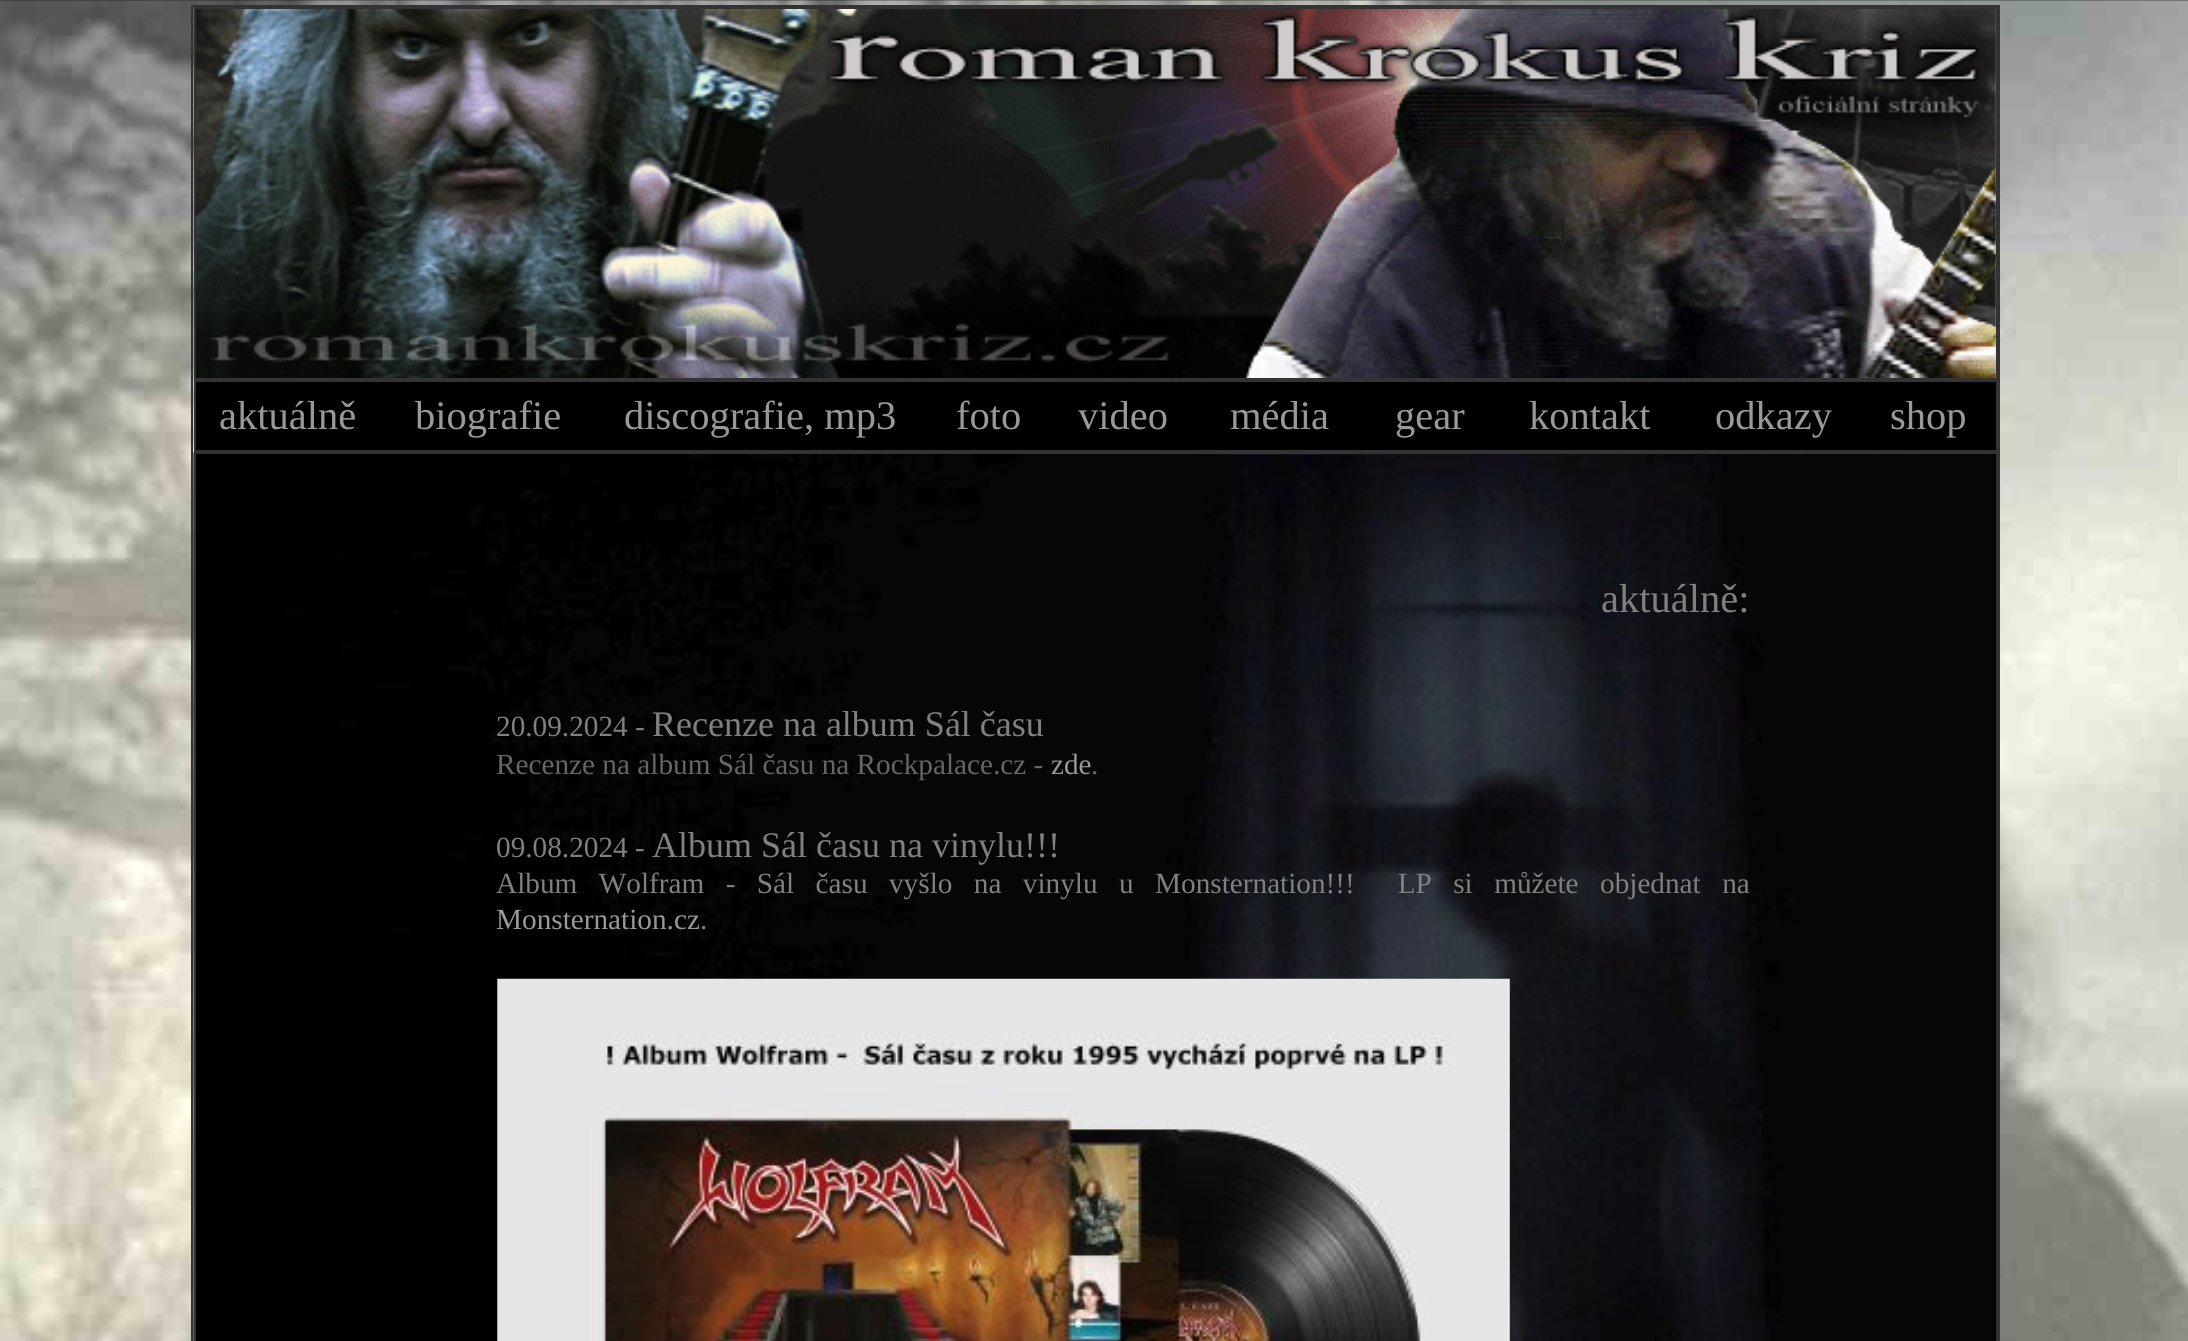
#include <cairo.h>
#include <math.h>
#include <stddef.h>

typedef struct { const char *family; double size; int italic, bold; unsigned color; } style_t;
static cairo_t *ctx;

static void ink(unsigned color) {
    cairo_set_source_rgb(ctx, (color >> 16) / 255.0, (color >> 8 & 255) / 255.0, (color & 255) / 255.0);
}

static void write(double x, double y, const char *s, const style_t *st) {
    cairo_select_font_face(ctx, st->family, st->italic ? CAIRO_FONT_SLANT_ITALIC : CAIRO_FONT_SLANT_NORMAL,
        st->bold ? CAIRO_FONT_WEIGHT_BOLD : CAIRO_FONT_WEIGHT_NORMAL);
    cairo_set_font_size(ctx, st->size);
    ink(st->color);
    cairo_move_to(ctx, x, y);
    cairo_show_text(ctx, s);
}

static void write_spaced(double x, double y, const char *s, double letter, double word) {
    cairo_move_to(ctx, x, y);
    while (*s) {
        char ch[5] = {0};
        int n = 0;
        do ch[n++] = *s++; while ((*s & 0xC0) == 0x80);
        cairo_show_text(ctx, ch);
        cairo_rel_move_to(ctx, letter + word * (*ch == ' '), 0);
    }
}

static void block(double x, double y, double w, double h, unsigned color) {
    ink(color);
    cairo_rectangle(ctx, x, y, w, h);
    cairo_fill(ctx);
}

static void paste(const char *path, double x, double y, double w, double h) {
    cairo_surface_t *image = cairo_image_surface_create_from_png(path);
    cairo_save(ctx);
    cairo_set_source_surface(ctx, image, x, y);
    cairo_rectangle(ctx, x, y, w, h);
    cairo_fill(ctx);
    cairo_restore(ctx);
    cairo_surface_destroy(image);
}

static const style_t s1 = {"Liberation Serif", 40.5, 0, 0, 0x999999};
static const style_t s2 = {"Liberation Serif", 40.5, 0, 0, 0x808080};
static const style_t s3 = {"Liberation Serif", 29.25, 0, 0, 0x808080};
static const style_t s4 = {"Liberation Serif", 36, 0, 0, 0x808080};
static const style_t s5 = {"Liberation Serif", 29.25, 0, 0, 0x666666};
static const style_t s6 = {"Liberation Serif", 29.25, 0, 0, 0x999999};

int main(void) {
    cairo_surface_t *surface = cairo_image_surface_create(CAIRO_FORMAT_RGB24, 2188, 1341);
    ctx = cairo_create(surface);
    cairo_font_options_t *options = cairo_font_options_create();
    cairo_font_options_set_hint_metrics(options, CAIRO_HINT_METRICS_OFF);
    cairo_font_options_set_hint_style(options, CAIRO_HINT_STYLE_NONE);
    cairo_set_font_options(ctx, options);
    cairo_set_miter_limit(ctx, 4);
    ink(0xffffff);
    cairo_paint(ctx);
    paste("pic1.png", 0, 0, 2188, 1341);
    cairo_rectangle(ctx, 192, 6, 1807, 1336);
    ink(0x333333);
    cairo_stroke(ctx);
    cairo_rectangle(ctx, 195, 8, 1802, 371);
    cairo_stroke(ctx);
    paste("pic2.png", 195, 9, 1801, 369);
    ink(0x000000);
    cairo_rectangle(ctx, 195, 381, 1802, 70);
    cairo_fill_preserve(ctx);
    ink(0x333333);
    cairo_stroke(ctx);
    write(219, 429, "aktuálně", &s1);
    write(415, 429, "biografie", &s1);
    write(624, 429, "discografie, mp3", &s1);
    write(956, 429, "foto", &s1);
    write(1078, 429, "video", &s1);
    write(1230, 429, "média", &s1);
    write(1395, 429, "gear", &s1);
    write(1529, 429, "kontakt", &s1);
    write(1715, 429, "odkazy", &s1);
    write(1890, 429, "shop", &s1);
    block(1995, 454, 1, 887, 0x000000);
    paste("pic3.png", 193, 452, 1802, 889);
    cairo_rectangle(ctx, 195, 453, 1802, 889);
    ink(0x333333);
    cairo_stroke(ctx);
    write(1601, 612, "aktuálně:", &s2);
    write(496, 736, "20.09.2024 -", &s3);
    write(652, 736, "Recenze na album Sál času", &s4);
    write(496, 774, "Recenze na album Sál času na Rockpalace.cz -", &s5);
    write(1051, 774, "zde", &s6);
    write(1091, 774, ".", &s5);
    write(496, 857, "09.08.2024 -", &s3);
    write(652, 857, "Album Sál času na vinylu!!!", &s4);
    cairo_set_font_size(ctx, 29.25);
    write_spaced(496, 893, "Album Wolfram - Sál času vyšlo na vinylu u Monsternation!!!  LP si můžete objednat na", 0, 14.1);
    write(496, 929, "Monsternation.cz", &s6);
    write(700, 929, ".", &s3);
    paste("pic4.png", 497, 978, 1013, 363);
    cairo_surface_write_to_png(surface, "screenshot.png");
    cairo_font_options_destroy(options);
    cairo_destroy(ctx);
    cairo_surface_destroy(surface);
    return 0;
}
